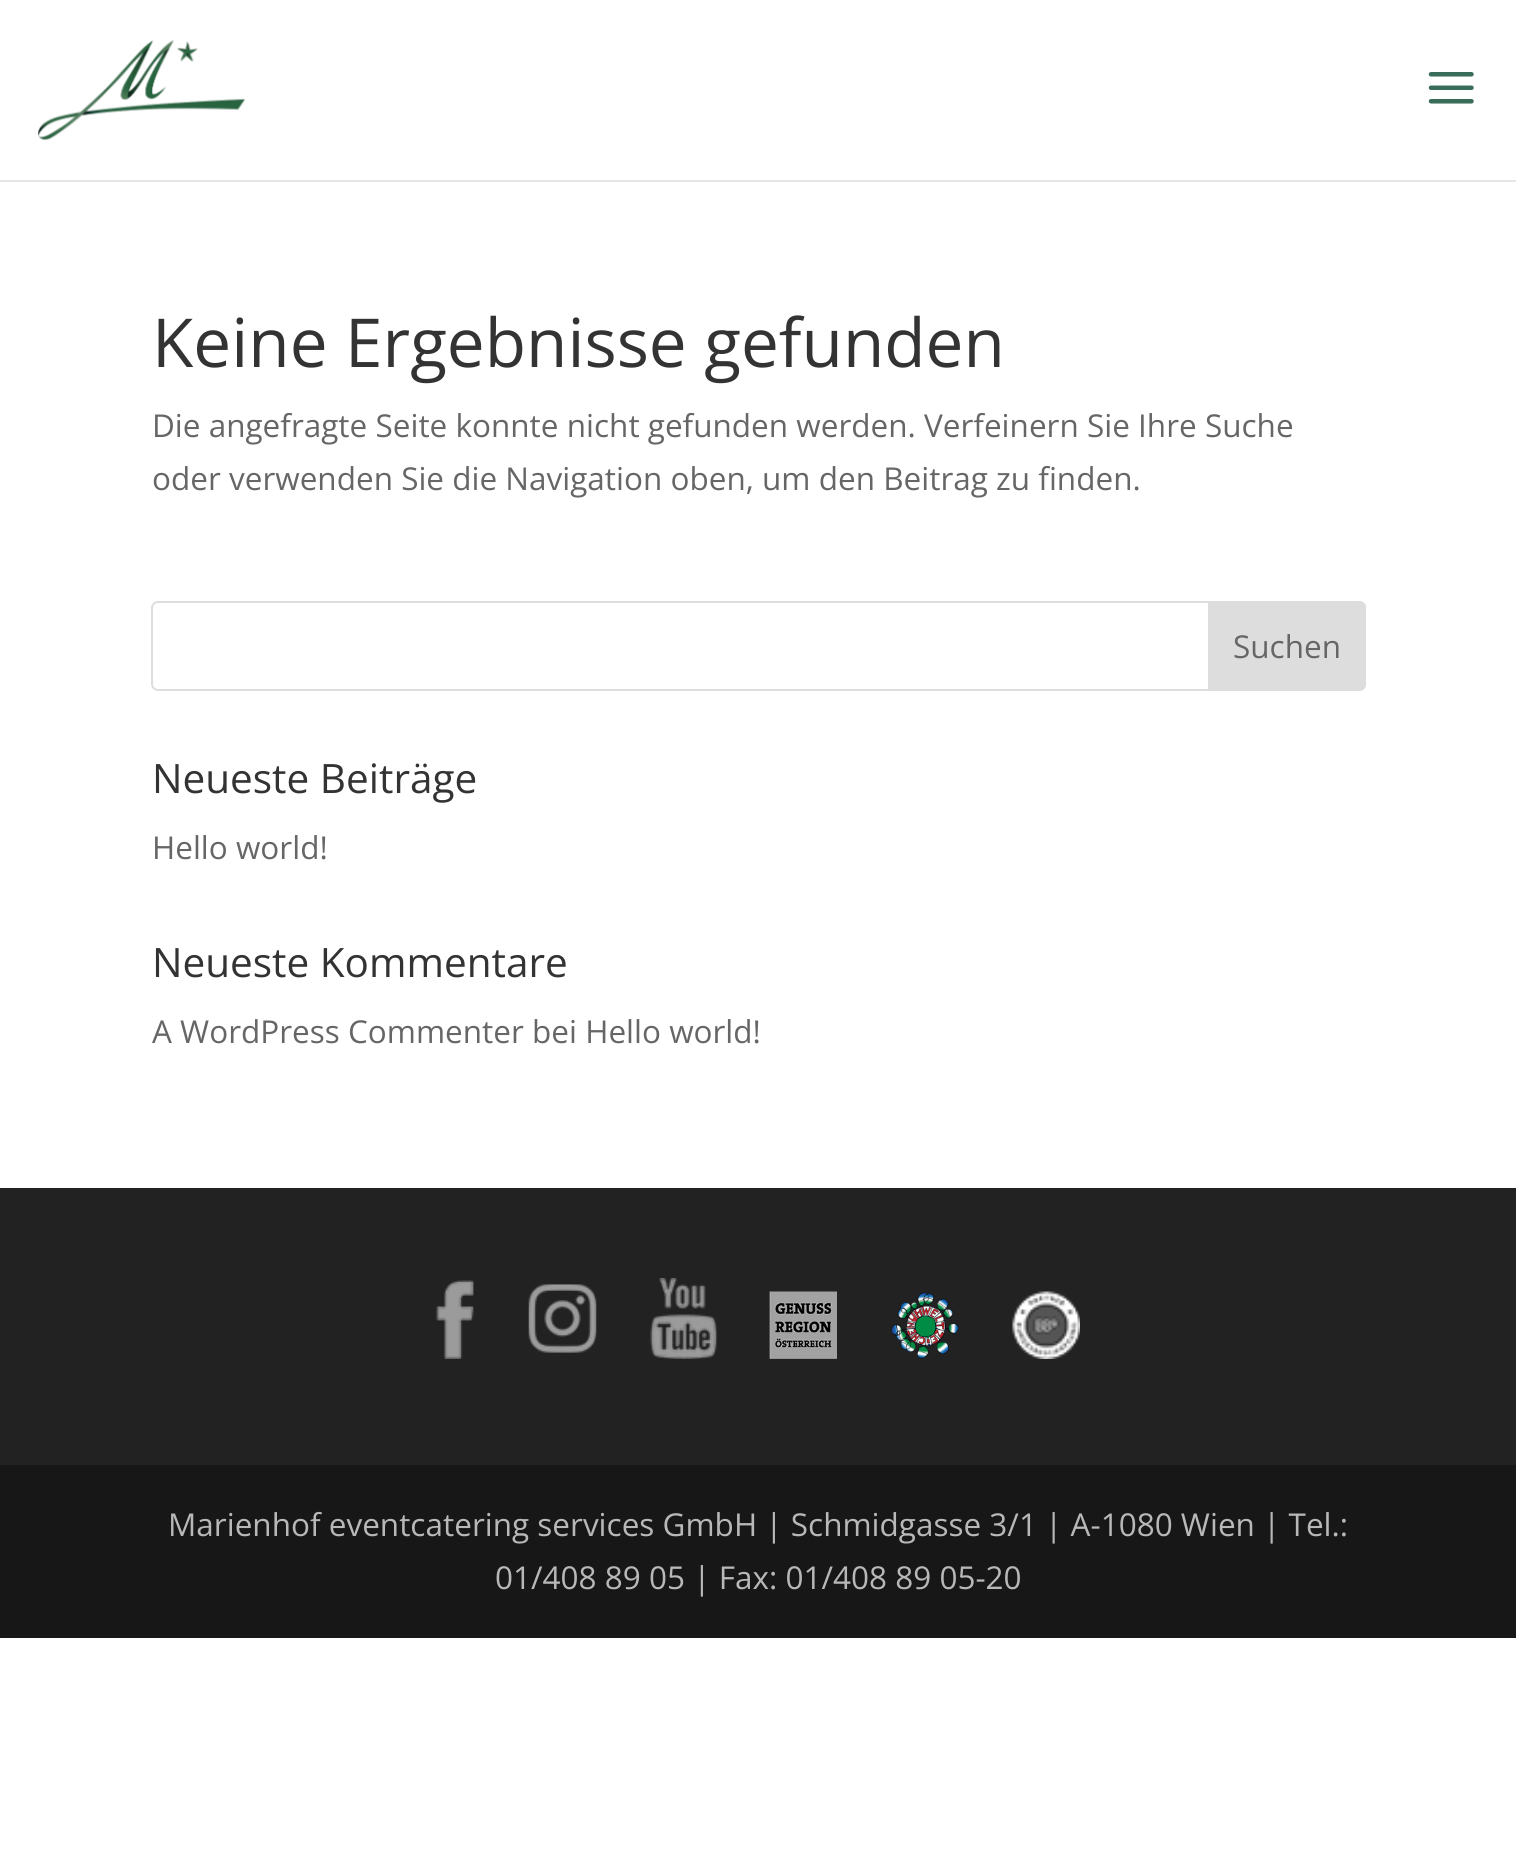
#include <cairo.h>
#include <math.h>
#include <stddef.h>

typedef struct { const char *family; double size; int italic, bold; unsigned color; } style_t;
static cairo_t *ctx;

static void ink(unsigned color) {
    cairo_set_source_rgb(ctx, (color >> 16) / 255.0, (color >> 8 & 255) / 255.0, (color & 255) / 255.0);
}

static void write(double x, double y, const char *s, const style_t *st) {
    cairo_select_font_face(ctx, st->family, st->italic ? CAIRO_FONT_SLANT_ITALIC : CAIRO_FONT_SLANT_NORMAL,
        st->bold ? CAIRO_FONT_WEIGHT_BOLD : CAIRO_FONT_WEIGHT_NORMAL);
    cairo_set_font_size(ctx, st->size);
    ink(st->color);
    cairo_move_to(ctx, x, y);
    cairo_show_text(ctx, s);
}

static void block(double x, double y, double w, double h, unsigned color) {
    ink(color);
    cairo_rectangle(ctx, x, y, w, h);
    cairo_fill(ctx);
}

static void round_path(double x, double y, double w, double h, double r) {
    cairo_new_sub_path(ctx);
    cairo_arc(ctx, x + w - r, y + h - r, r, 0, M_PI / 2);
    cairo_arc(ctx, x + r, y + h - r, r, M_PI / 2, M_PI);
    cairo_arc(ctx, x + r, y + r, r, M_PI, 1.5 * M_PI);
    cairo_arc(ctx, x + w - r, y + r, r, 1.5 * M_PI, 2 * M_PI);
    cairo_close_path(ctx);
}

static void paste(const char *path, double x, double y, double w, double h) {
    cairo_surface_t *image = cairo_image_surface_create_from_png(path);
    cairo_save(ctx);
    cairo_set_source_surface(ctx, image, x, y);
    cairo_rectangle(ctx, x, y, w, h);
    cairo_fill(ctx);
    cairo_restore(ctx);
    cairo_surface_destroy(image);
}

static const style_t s1 = {"Open Sans", 67.5, 0, 0, 0x333333};
static const style_t s2 = {"Open Sans", 31.5, 0, 0, 0x666666};
static const style_t s3 = {"Open Sans", 40.5, 0, 0, 0x333333};
static const style_t s4 = {"Open Sans", 31.5, 0, 0, 0xb8b8b8};

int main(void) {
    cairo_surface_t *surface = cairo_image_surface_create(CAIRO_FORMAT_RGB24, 1516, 1849);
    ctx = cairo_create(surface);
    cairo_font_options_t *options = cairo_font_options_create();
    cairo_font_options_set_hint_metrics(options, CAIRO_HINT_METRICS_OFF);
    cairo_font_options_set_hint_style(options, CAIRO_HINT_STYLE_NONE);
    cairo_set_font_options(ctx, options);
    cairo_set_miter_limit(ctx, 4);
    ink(0xffffff);
    cairo_paint(ctx);
    ink(0xe6e6e6);
    cairo_new_path(ctx);
    cairo_move_to(ctx, 0, 180);
    cairo_line_to(ctx, 0, 182);
    cairo_line_to(ctx, 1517, 182);
    cairo_line_to(ctx, 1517, 2);
    cairo_line_to(ctx, 1516, 2);
    cairo_line_to(ctx, 1516, 180);
    cairo_close_path(ctx);
    cairo_fill(ctx);
    paste("pic1.png", 38, 40, 208, 100);
    paste("pic2.png", 1428, 72, 46, 32);
    write(152, 367, "Keine Ergebnisse gefunden", &s1);
    write(152, 437, "Die angefragte Seite konnte nicht gefunden werden. Verfeinern Sie Ihre Suche", &s2);
    write(152, 490, "oder verwenden Sie die Navigation oben, um den Beitrag zu finden.", &s2);
    round_path(152, 602, 1213, 88, 6);
    ink(0xdddddd);
    cairo_stroke(ctx);
    cairo_new_path(ctx);
    cairo_move_to(ctx, 1209, 602);
    cairo_line_to(ctx, 1359, 602);
    cairo_curve_to(ctx, 1362.5, 602, 1365, 604.5, 1365, 608);
    cairo_line_to(ctx, 1365, 684);
    cairo_curve_to(ctx, 1365, 687.5, 1362.5, 690, 1359, 690);
    cairo_line_to(ctx, 1209, 690);
    cairo_close_path(ctx);
    cairo_fill_preserve(ctx);
    cairo_stroke(ctx);
    write(1233, 658, "Suchen", &s2);
    write(152, 793, "Neueste Beiträge", &s3);
    write(152, 859, "Hello world!", &s2);
    write(152, 977, "Neueste Kommentare", &s3);
    write(152, 1043, "A WordPress Commenter bei Hello world!", &s2);
    block(0, 1188, 1516, 277, 0x222222);
    paste("pic3.png", 436, 1280, 38, 79);
    paste("pic4.png", 528, 1284, 69, 69);
    paste("pic5.png", 650, 1278, 68, 81);
    paste("pic6.png", 769, 1291, 68, 68);
    paste("pic7.png", 891, 1292, 68, 67);
    paste("pic8.png", 1012, 1291, 68, 68);
    block(0, 1465, 1516, 173, 0x171717);
    write(168, 1536, "Marienhof eventcatering services GmbH | Schmidgasse 3/1 | A-1080 Wien | Tel.:", &s4);
    write(495, 1589, "01/408 89 05 | Fax: 01/408 89 05-20", &s4);
    cairo_surface_write_to_png(surface, "screenshot.png");
    cairo_font_options_destroy(options);
    cairo_destroy(ctx);
    cairo_surface_destroy(surface);
    return 0;
}
